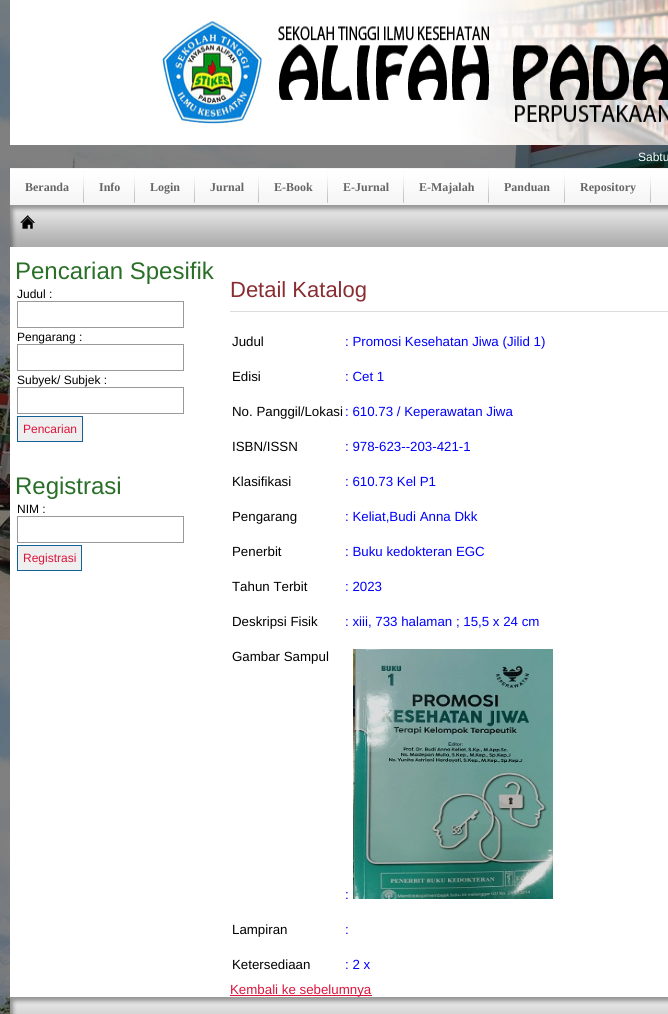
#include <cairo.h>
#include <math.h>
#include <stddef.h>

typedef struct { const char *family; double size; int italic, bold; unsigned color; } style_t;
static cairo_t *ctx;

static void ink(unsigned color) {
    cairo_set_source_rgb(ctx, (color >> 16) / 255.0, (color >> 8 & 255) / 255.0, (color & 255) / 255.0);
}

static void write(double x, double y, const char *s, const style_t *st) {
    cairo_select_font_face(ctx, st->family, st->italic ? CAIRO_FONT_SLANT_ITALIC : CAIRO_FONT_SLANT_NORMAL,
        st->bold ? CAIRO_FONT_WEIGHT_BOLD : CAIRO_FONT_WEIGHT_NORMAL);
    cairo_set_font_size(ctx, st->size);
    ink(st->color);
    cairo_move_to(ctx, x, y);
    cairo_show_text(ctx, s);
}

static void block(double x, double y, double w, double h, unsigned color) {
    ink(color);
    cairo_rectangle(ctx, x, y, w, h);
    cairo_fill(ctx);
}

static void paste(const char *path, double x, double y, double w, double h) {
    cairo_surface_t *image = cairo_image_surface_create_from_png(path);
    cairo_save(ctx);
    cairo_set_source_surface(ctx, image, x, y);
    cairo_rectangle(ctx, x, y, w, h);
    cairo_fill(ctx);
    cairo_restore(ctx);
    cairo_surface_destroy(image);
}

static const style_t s1 = {"Liberation Sans", 12, 0, 0, 0xffffff};
static const style_t s2 = {"Liberation Serif", 12, 0, 1, 0x666666};
static const style_t s3 = {"Liberation Sans", 24, 0, 0, 0x2a6f28};
static const style_t s4 = {"Liberation Sans", 12, 0, 0, 0x000000};
static const style_t s5 = {"Liberation Sans", 12, 0, 0, 0xdc143c};
static const style_t s6 = {"Liberation Sans", 22, 0, 0, 0x892d33};
static const style_t s7 = {"Liberation Sans", 13.3, 0, 0, 0x000000};
static const style_t s8 = {"Liberation Sans", 13.3, 0, 0, 0x0000ff};
static const style_t s9 = {"Liberation Sans", 13.3, 0, 0, 0xdc143c};

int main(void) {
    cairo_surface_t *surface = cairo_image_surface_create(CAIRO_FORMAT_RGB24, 668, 1014);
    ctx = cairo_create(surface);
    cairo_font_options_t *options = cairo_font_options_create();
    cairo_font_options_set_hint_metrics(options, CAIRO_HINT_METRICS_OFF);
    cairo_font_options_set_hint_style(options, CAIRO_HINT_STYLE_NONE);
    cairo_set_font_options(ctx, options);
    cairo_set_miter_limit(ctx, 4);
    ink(0xffffff);
    cairo_paint(ctx);
    paste("pic1.png", 0, 0, 668, 1014);
    paste("pic2.png", 10, 0, 658, 145);
    write(638, 161, "Sabtu", &s1);
    paste("pic3.png", 10, 168, 658, 37);
    paste("pic4.png", 83, 171, 1, 32);
    write(25, 191, "Beranda", &s2);
    paste("pic4.png", 134, 171, 1, 32);
    write(99, 191, "Info", &s2);
    paste("pic4.png", 194, 171, 1, 32);
    write(150, 191, "Login", &s2);
    paste("pic4.png", 258, 171, 1, 32);
    write(210, 191, "Jurnal", &s2);
    paste("pic4.png", 327, 171, 1, 32);
    write(274, 191, "E-Book", &s2);
    paste("pic4.png", 403, 171, 1, 32);
    write(343, 191, "E-Jurnal", &s2);
    paste("pic4.png", 488, 171, 1, 32);
    write(419, 191, "E-Majalah", &s2);
    paste("pic4.png", 564, 171, 1, 32);
    write(504, 191, "Panduan", &s2);
    paste("pic4.png", 650, 171, 1, 32);
    write(580, 191, "Repository", &s2);
    paste("pic5.png", 10, 205, 658, 42);
    paste("pic6.png", 20, 215, 15, 14);
    block(10, 247, 658, 750, 0xffffff);
    write(15, 279, "Pencarian Spesifik", &s3);
    write(17, 298, "Judul :", &s4);
    cairo_rectangle(ctx, 17.5, 301.5, 166, 26);
    ink(0x999999);
    cairo_set_line_width(ctx, 1);
    cairo_stroke(ctx);
    write(17, 341, "Pengarang :", &s4);
    cairo_rectangle(ctx, 17.5, 344.5, 166, 26);
    ink(0x999999);
    cairo_stroke(ctx);
    write(17, 384, "Subyek/ Subjek :", &s4);
    cairo_rectangle(ctx, 17.5, 387.5, 166, 26);
    ink(0x999999);
    cairo_stroke(ctx);
    ink(0xefefef);
    cairo_rectangle(ctx, 17.5, 416.5, 65, 25);
    cairo_fill_preserve(ctx);
    ink(0x146295);
    cairo_stroke(ctx);
    write(23, 433, "Pencarian", &s5);
    write(15, 494, "Registrasi", &s3);
    write(17, 513, "NIM :", &s4);
    cairo_rectangle(ctx, 17.5, 516.5, 166, 26);
    ink(0x999999);
    cairo_stroke(ctx);
    ink(0xefefef);
    cairo_rectangle(ctx, 17.5, 545.5, 64, 25);
    cairo_fill_preserve(ctx);
    ink(0x146295);
    cairo_stroke(ctx);
    write(23, 562, "Registrasi", &s5);
    block(230, 311, 438, 1, 0xdddddd);
    write(230, 297, "Detail Katalog", &s6);
    write(232, 346, "Judul", &s7);
    write(345, 346, ": Promosi Kesehatan Jiwa (Jilid 1)", &s8);
    write(232, 381, "Edisi", &s7);
    write(345, 381, ": Cet 1", &s8);
    write(232, 416, "No. Panggil/Lokasi", &s7);
    write(345, 416, ": 610.73 / Keperawatan Jiwa", &s8);
    write(232, 451, "ISBN/ISSN", &s7);
    write(345, 451, ": 978-623--203-421-1", &s8);
    write(232, 486, "Klasifikasi", &s7);
    write(345, 486, ": 610.73 Kel P1", &s8);
    write(232, 521, "Pengarang", &s7);
    write(345, 521, ": Keliat,Budi Anna Dkk", &s8);
    write(232, 556, "Penerbit", &s7);
    write(345, 556, ": Buku kedokteran EGC", &s8);
    write(232, 591, "Tahun Terbit", &s7);
    write(345, 591, ": 2023", &s8);
    write(232, 626, "Deskripsi Fisik", &s7);
    write(345, 626, ": xiii, 733 halaman ; 15,5 x 24 cm", &s8);
    write(232, 661, "Gambar Sampul", &s7);
    write(345, 899, ":", &s8);
    paste("pic7.png", 353, 649, 200, 250);
    write(232, 934, "Lampiran", &s7);
    write(345, 934, ":", &s8);
    write(232, 969, "Ketersediaan", &s7);
    write(345, 969, ": 2 x", &s8);
    block(230, 995, 142, 1, 0xdc143c);
    write(230, 994, "Kembali ke sebelumnya", &s9);
    paste("pic8.png", 10, 997, 658, 17);
    cairo_surface_write_to_png(surface, "screenshot.png");
    cairo_font_options_destroy(options);
    cairo_destroy(ctx);
    cairo_surface_destroy(surface);
    return 0;
}
